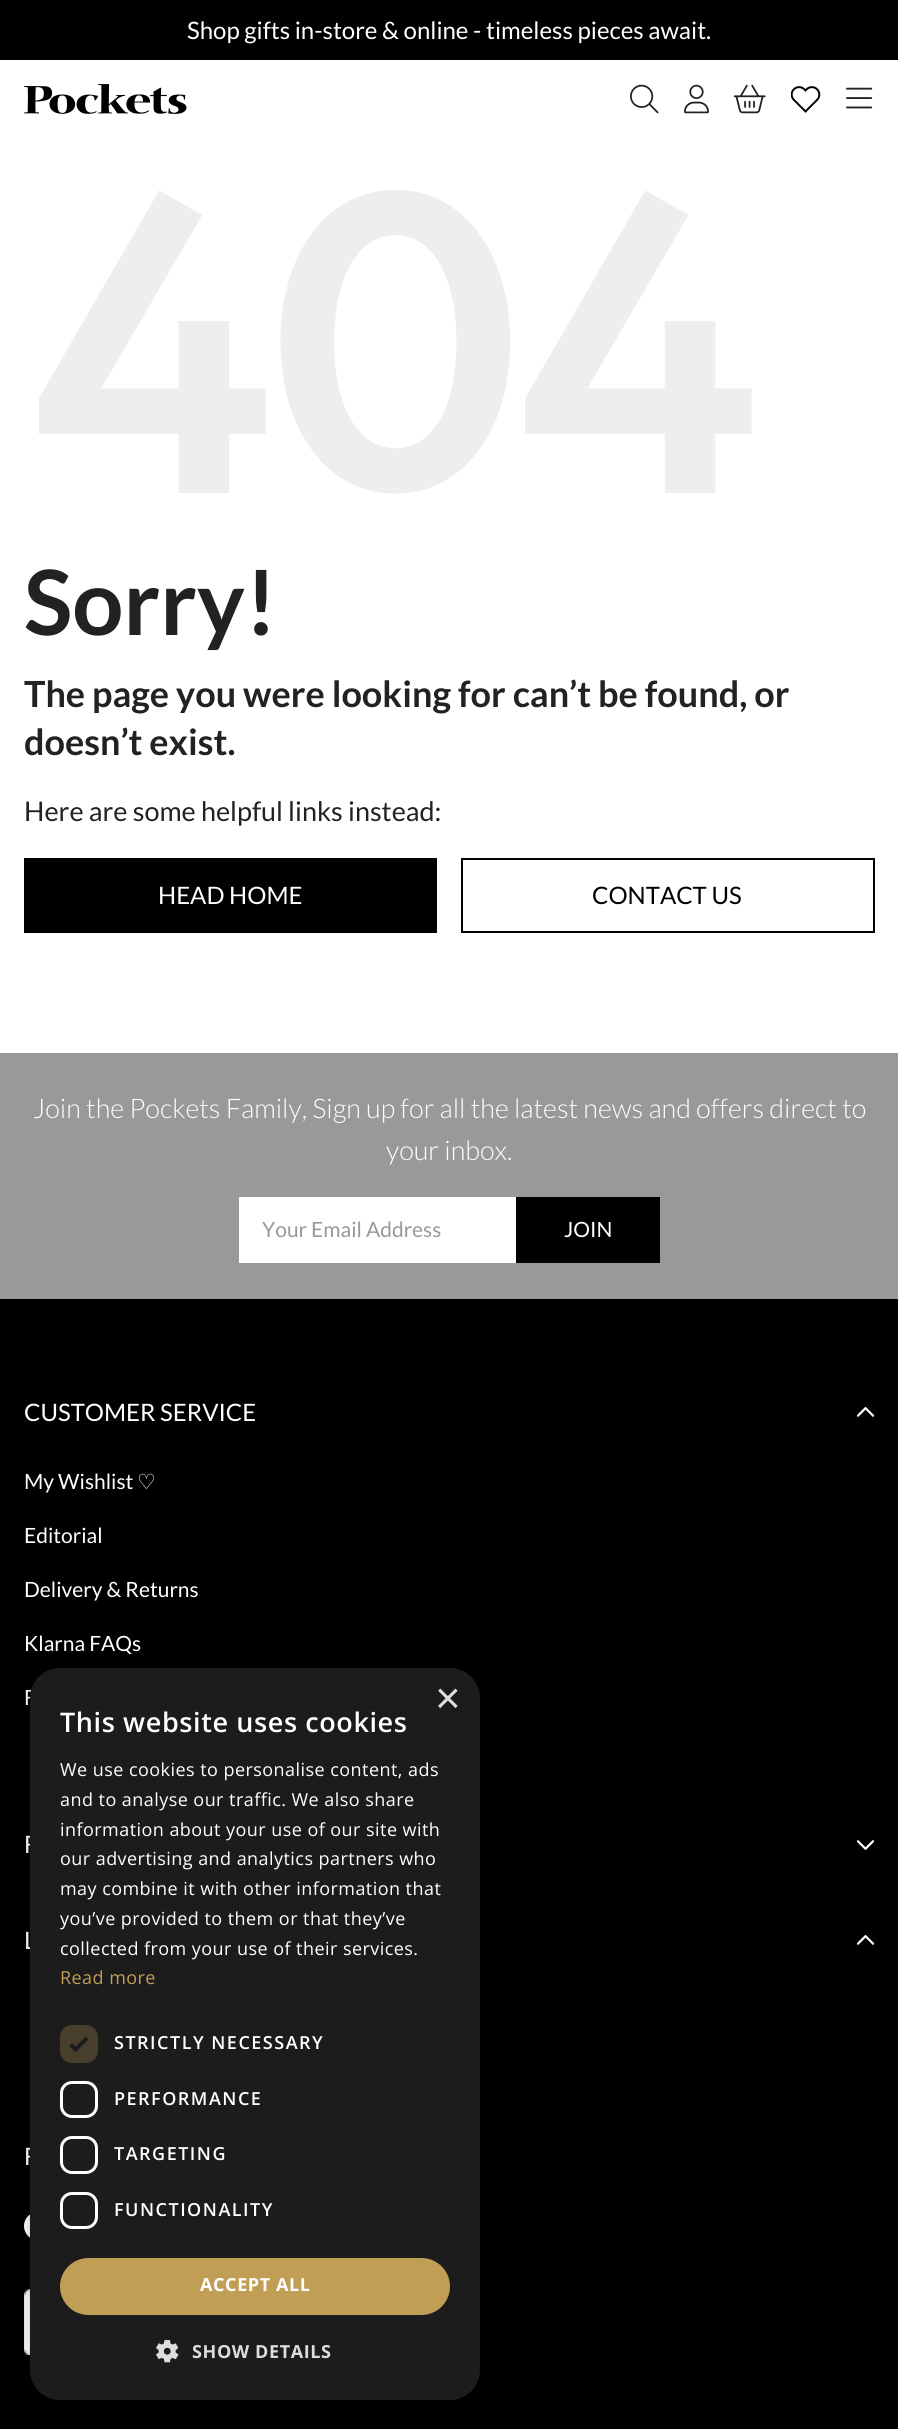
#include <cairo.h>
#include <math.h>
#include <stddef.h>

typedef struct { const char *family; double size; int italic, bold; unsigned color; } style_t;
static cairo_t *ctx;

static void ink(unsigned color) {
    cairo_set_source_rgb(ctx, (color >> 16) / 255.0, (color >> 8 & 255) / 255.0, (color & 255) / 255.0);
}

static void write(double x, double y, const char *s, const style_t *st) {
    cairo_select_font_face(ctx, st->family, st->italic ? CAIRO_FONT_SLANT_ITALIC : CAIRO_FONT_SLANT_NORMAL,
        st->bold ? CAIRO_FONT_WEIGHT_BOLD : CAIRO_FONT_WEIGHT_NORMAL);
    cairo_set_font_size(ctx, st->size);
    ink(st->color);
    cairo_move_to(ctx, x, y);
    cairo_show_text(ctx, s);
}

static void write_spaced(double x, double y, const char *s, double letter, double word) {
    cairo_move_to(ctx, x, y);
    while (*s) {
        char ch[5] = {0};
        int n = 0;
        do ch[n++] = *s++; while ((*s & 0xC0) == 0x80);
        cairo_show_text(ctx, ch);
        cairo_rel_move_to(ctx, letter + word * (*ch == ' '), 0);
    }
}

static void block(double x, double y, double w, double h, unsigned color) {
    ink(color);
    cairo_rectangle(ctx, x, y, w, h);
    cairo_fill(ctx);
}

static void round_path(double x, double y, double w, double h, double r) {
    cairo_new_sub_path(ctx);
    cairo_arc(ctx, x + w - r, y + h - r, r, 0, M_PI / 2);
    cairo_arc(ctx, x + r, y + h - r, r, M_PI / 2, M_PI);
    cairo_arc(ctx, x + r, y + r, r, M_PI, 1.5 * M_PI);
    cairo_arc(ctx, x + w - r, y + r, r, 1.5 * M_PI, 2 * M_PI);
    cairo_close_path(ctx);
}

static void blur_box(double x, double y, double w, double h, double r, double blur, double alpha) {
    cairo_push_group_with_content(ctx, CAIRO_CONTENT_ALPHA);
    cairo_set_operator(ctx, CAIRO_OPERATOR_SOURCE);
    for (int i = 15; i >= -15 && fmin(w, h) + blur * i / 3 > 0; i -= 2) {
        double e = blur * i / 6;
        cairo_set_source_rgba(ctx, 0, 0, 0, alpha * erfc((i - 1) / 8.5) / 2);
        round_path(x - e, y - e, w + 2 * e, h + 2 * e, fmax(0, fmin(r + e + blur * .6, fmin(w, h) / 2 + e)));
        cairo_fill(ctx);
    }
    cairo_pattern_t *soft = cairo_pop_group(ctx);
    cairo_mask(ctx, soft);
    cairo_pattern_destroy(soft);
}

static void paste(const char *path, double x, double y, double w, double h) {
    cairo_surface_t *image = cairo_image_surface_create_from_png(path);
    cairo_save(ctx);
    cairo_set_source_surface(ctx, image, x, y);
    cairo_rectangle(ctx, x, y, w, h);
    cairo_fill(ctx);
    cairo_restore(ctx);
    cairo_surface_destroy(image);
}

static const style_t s1 = {"Lato", 24, 0, 0, 0xffffff};
static const style_t s2 = {"Lato", 90, 0, 1, 0x222222};
static const style_t s3 = {"Lato", 36, 0, 1, 0x222222};
static const style_t s4 = {"Lato", 27, 0, 0, 0x222222};
static const style_t s5 = {"Lato", 24, 0, 0, 0x000000};
static const style_t s6 = {"Lato Light", 27, 0, 0, 0xffffff};
static const style_t s7 = {"Lato", 21, 0, 0, 0x999999};
static const style_t s8 = {"Lato", 21, 0, 0, 0xffffff};
static const style_t s9 = {"DejaVu Sans", 21, 0, 0, 0xffffff};
static const style_t s10 = {"Liberation Sans", 44, 0, 0, 0xdddddd};

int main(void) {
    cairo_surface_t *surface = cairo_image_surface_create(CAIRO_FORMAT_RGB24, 898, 2429);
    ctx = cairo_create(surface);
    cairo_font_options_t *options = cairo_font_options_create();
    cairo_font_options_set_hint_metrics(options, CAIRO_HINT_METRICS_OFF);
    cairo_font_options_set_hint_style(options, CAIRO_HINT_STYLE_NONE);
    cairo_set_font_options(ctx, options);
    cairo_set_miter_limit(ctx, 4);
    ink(0xffffff);
    cairo_paint(ctx);
    block(0, 0, 898, 60, 0x000000);
    write(187, 39, "Shop gifts in-store & online - timeless pieces await.", &s1);
    paste("pic1.png", 24, 84, 163, 30);
    paste("pic2.png", 630, 84, 29, 30);
    paste("pic3.png", 684, 84, 25, 30);
    paste("pic4.png", 734, 84, 32, 30);
    paste("pic5.png", 791, 86, 30, 27);
    paste("pic6.png", 846, 87, 27, 22);
    paste("pic7.png", 39, 189, 713, 305);
    write(24, 635, "Sorry!", &s2);
    write(24, 707, "The page you were looking for can’t be found, or", &s3);
    write(24, 755, "doesn’t exist.", &s3);
    write(24, 821, "Here are some helpful links instead:", &s4);
    block(24, 858, 413, 75, 0x000000);
    write(158, 904, "HEAD HOME", &s1);
    cairo_rectangle(ctx, 462, 859, 412, 73);
    ink(0x000000);
    cairo_stroke(ctx);
    write(592, 904, "CONTACT US", &s5);
    block(0, 1053, 898, 246, 0x999999);
    write(33, 1118, "Join the Pockets Family, Sign up for all the latest news and offers direct to", &s6);
    write(386, 1160, "your inbox.", &s6);
    block(239, 1197, 277, 66, 0xffffff);
    write(262, 1237, "Your Email Address", &s7);
    block(516, 1197, 144, 66, 0x000000);
    write(564, 1237, "JOIN", &s8);
    block(0, 1299, 898, 1130, 0x000000);
    write(24, 1421, "CUSTOMER SERVICE", &s1);
    paste("pic8.png", 857, 1407, 18, 10);
    write(24, 1489, "My Wishlist", &s8);
    write(137, 1489, "♡", &s9);
    write(24, 1543, "Editorial", &s8);
    write(24, 1597, "Delivery & Returns", &s8);
    write(24, 1651, "Klarna FAQs", &s8);
    write(24, 1705, "F", &s8);
    write(24, 1853, "F", &s1);
    paste("pic9.png", 857, 1840, 18, 10);
    write(24, 1949, "L", &s1);
    paste("pic8.png", 857, 1935, 18, 10);
    write(24, 2165, "F", &s1);
    paste("pic10.png", 24, 2214, 6, 24);
    paste("pic11.png", 24, 2289, 6, 66);
    ink(0x000000);
    blur_box(32, 1671, 450, 732, 30, 6, 0.35);
    ink(0x1c1c1c);
    round_path(30, 1668, 450, 732, 30);
    cairo_fill(ctx);
    write(435, 1713, "×", &s10);
    cairo_select_font_face(ctx, "Open Sans SemiBold", CAIRO_FONT_SLANT_NORMAL, CAIRO_FONT_WEIGHT_NORMAL);
    cairo_set_font_size(ctx, 27);
    ink(0xffffff);
    write_spaced(60, 1732, "This website uses cookies", 0.6, 0);
    cairo_select_font_face(ctx, "Open Sans", CAIRO_FONT_SLANT_NORMAL, CAIRO_FONT_WEIGHT_NORMAL);
    cairo_set_font_size(ctx, 18);
    write_spaced(60, 1776, "We use cookies to personalise content, ads", 0.45, 0);
    write_spaced(60, 1806, "and to analyse our traffic. We also share", 0.45, 0);
    write_spaced(60, 1836, "information about your use of our site with", 0.45, 0);
    write_spaced(60, 1865, "our advertising and analytics partners who", 0.45, 0);
    write_spaced(60, 1895, "may combine it with other information that", 0.45, 0);
    write_spaced(60, 1925, "you’ve provided to them or that they’ve", 0.45, 0);
    write_spaced(60, 1955, "collected from your use of their services.", 0.45, 0);
    ink(0xc09e56);
    write_spaced(60, 1984, "Read more", 0.45, 0);
    ink(0x473e2b);
    round_path(60, 2025, 38, 38, 12);
    cairo_fill(ctx);
    cairo_new_path(ctx);
    cairo_move_to(ctx, 70.5, 2044.5);
    cairo_line_to(ctx, 75.5, 2049.5);
    cairo_line_to(ctx, 87, 2038);
    ink(0x1c1c1c);
    cairo_set_line_width(ctx, 3.9);
    cairo_stroke(ctx);
    cairo_select_font_face(ctx, "Open Sans SemiBold", CAIRO_FONT_SLANT_NORMAL, CAIRO_FONT_WEIGHT_NORMAL);
    ink(0xffffff);
    write_spaced(114, 2049, "STRICTLY NECESSARY", 1.5, 0);
    round_path(61.5, 2082.5, 35, 34, 10.5);
    cairo_set_line_width(ctx, 3);
    cairo_stroke(ctx);
    write_spaced(114, 2105, "PERFORMANCE", 1.5, 0);
    round_path(61.5, 2137.5, 35, 35, 10.5);
    cairo_stroke(ctx);
    write_spaced(114, 2160, "TARGETING", 1.5, 0);
    round_path(61.5, 2193.5, 35, 34, 10.5);
    cairo_stroke(ctx);
    write_spaced(114, 2216, "FUNCTIONALITY", 1.5, 0);
    ink(0xc09e56);
    round_path(60, 2258, 390, 57, 28.5);
    cairo_fill(ctx);
    cairo_select_font_face(ctx, "Open Sans", CAIRO_FONT_SLANT_NORMAL, CAIRO_FONT_WEIGHT_BOLD);
    ink(0xffffff);
    write_spaced(200, 2291, "ACCEPT ALL", 0.6, 0);
    paste("pic12.png", 156, 2340, 23, 23);
    ink(0xdddddd);
    write_spaced(192, 2358, "SHOW DETAILS", 0.6, 0);
    cairo_surface_write_to_png(surface, "screenshot.png");
    cairo_font_options_destroy(options);
    cairo_destroy(ctx);
    cairo_surface_destroy(surface);
    return 0;
}
